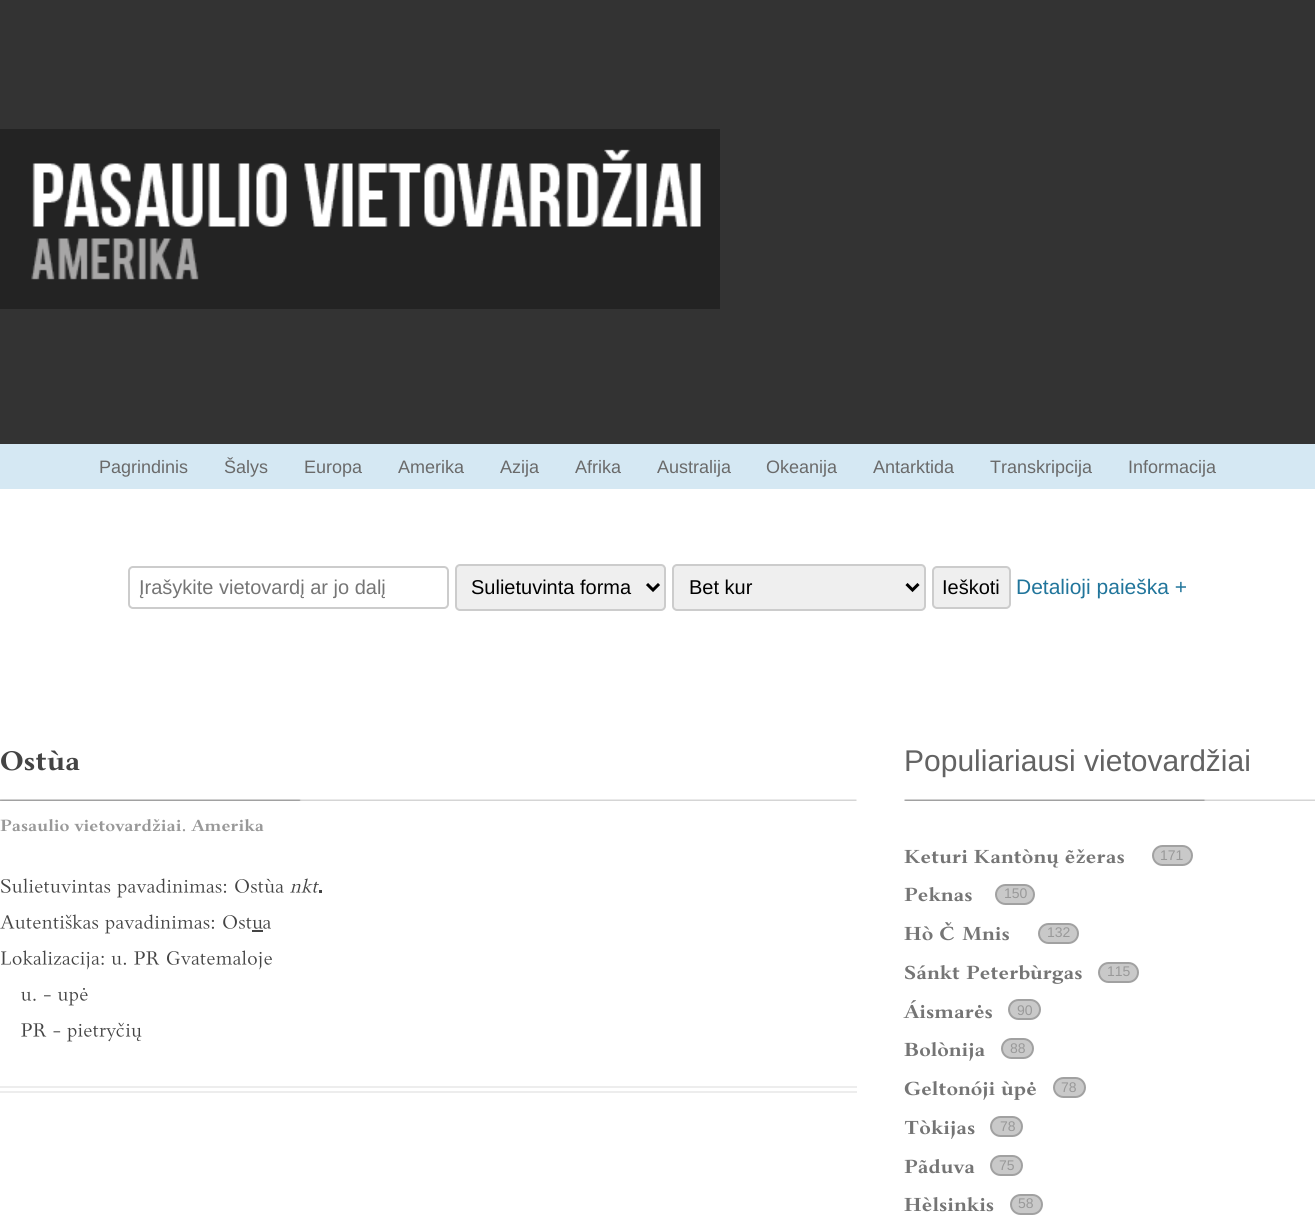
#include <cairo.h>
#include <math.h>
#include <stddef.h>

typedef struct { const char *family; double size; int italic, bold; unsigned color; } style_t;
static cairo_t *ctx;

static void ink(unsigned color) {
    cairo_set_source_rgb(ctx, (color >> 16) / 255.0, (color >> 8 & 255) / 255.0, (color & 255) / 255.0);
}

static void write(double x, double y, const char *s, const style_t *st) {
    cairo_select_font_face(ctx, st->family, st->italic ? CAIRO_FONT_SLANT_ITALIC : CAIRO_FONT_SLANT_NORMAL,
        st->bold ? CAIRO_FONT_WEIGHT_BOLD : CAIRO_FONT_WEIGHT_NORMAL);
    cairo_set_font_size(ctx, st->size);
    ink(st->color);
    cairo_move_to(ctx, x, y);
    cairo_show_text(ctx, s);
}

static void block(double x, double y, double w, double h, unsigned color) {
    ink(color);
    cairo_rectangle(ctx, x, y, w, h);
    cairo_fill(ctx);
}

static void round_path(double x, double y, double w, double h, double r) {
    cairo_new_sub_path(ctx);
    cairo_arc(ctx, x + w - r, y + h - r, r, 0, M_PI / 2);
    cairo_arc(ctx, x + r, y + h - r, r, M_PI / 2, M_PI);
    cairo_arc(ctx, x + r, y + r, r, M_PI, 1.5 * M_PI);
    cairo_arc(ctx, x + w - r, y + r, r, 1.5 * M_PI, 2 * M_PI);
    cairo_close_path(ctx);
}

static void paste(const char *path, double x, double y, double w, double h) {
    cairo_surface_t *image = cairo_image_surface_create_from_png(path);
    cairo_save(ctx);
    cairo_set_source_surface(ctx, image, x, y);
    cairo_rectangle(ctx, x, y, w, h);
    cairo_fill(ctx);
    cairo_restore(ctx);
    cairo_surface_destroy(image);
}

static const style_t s1 = {"Liberation Sans", 18, 0, 0, 0x6a6a6a};
static const style_t s2 = {"Liberation Sans", 20, 0, 0, 0x757575};
static const style_t s3 = {"Liberation Sans", 20, 0, 0, 0x000000};
static const style_t s4 = {"Liberation Sans", 21, 0, 0, 0x21759b};
static const style_t s5 = {"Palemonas", 30, 0, 1, 0x444444};
static const style_t s6 = {"Palemonas", 18, 0, 1, 0x999999};
static const style_t s7 = {"Liberation Sans", 30, 0, 0, 0x636363};
static const style_t s8 = {"Palemonas", 21, 0, 1, 0x757575};
static const style_t s9 = {"Liberation Sans", 14, 0, 0, 0x999999};

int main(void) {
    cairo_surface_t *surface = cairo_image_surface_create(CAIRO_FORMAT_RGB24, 1315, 1226);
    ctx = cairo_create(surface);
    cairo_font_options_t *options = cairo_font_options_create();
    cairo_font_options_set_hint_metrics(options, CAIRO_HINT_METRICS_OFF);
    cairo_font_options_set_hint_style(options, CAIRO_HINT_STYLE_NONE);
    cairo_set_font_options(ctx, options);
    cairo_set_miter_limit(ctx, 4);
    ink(0xffffff);
    cairo_paint(ctx);
    block(0, 0, 1315, 444, 0x333333);
    paste("pic1.png", 0, 129, 720, 180);
    block(0, 444, 1315, 45, 0xd5e8f3);
    write(99, 473, "Pagrindinis", &s1);
    write(224, 473, "Šalys", &s1);
    write(304, 473, "Europa", &s1);
    write(398, 473, "Amerika", &s1);
    write(500, 473, "Azija", &s1);
    write(575, 473, "Afrika", &s1);
    write(657, 473, "Australija", &s1);
    write(766, 473, "Okeanija", &s1);
    write(873, 473, "Antarktida", &s1);
    write(990, 473, "Transkripcija", &s1);
    write(1128, 473, "Informacija", &s1);
    round_path(129, 567, 319, 41, 4);
    ink(0xcccccc);
    cairo_stroke(ctx);
    write(139, 594, "Įrašykite vietovardį ar jo dalį", &s2);
    ink(0xefefef);
    round_path(456, 565, 209, 45, 4);
    cairo_fill_preserve(ctx);
    ink(0xcccccc);
    cairo_stroke(ctx);
    cairo_new_path(ctx);
    cairo_move_to(ctx, 647, 584);
    cairo_line_to(ctx, 653, 590);
    cairo_line_to(ctx, 659, 584);
    ink(0x000000);
    cairo_set_line_width(ctx, 3);
    cairo_stroke(ctx);
    write(471, 594, "Sulietuvinta forma", &s3);
    ink(0xefefef);
    round_path(673, 565, 252, 45, 4);
    cairo_fill_preserve(ctx);
    ink(0xcccccc);
    cairo_set_line_width(ctx, 2);
    cairo_stroke(ctx);
    cairo_new_path(ctx);
    cairo_move_to(ctx, 906.5, 584);
    cairo_line_to(ctx, 912.5, 590);
    cairo_line_to(ctx, 918.5, 584);
    ink(0x000000);
    cairo_set_line_width(ctx, 3);
    cairo_stroke(ctx);
    write(689, 594, "Bet kur", &s3);
    ink(0xefefef);
    round_path(933, 567, 77, 41, 4);
    cairo_fill_preserve(ctx);
    ink(0xcccccc);
    cairo_set_line_width(ctx, 2);
    cairo_stroke(ctx);
    write(942, 594, "Ieškoti", &s3);
    write(1016, 594, "Detalioji paieška +", &s4);
    block(0, 1086, 857, 2, 0xededed);
    block(0, 1091, 857, 2, 0xededed);
    paste("pic2.png", 0, 799, 857, 2);
    write(0, 770, "Ostùa", &s5);
    write(0, 831, "Pasaulio vietovardžiai. Amerika", &s6);
    paste("pic3.png", 1, 878, 226, 20);
    paste("pic4.png", 235, 878, 49, 15);
    paste("pic5.png", 290, 878, 29, 15);
    block(319, 890, 3, 3, 0x444444);
    paste("pic6.png", 0, 914, 214, 20);
    paste("pic7.png", 223, 915, 29, 14);
    paste("pic8.png", 252, 919, 11, 10);
    paste("pic9.png", 263, 920, 8, 9);
    block(252, 930, 11, 2, 0x444444);
    paste("pic10.png", 1, 950, 103, 20);
    paste("pic11.png", 111, 950, 161, 20);
    paste("pic12.png", 21, 988, 67, 18);
    paste("pic13.png", 21, 1022, 121, 20);
    paste("pic14.png", 904, 799, 411, 2);
    write(904, 771, "Populiariausi vietovardžiai", &s7);
    write(904, 863, "Keturi Kantònų ẽžeras", &s8);
    ink(0xc9c9c9);
    round_path(1153, 846, 39, 19, 9.5);
    cairo_fill_preserve(ctx);
    ink(0xa1a1a1);
    cairo_stroke(ctx);
    write(1160, 860, "171", &s9);
    write(904, 901, "Peknas", &s8);
    ink(0xc9c9c9);
    round_path(996, 885, 38, 19, 9.5);
    cairo_fill_preserve(ctx);
    ink(0xa1a1a1);
    cairo_stroke(ctx);
    write(1004, 898, "150", &s9);
    write(904, 940, "Hò Č Mnis", &s8);
    ink(0xc9c9c9);
    round_path(1039, 924, 39, 19, 9.5);
    cairo_fill_preserve(ctx);
    ink(0xa1a1a1);
    cairo_stroke(ctx);
    write(1047, 937, "132", &s9);
    write(904, 979, "Sánkt Peterbùrgas", &s8);
    ink(0xc9c9c9);
    round_path(1099, 963, 39, 19, 9.5);
    cairo_fill_preserve(ctx);
    ink(0xa1a1a1);
    cairo_stroke(ctx);
    write(1107, 976, "115", &s9);
    write(904, 1018, "Áismarės", &s8);
    ink(0xc9c9c9);
    round_path(1009, 1000, 31, 19, 9.5);
    cairo_fill_preserve(ctx);
    ink(0xa1a1a1);
    cairo_stroke(ctx);
    write(1017, 1015, "90", &s9);
    write(904, 1056, "Bolònija", &s8);
    ink(0xc9c9c9);
    round_path(1002, 1039, 31, 19, 9.5);
    cairo_fill_preserve(ctx);
    ink(0xa1a1a1);
    cairo_stroke(ctx);
    write(1010, 1053, "88", &s9);
    write(904, 1095, "Geltonóji ùpė", &s8);
    ink(0xc9c9c9);
    round_path(1054, 1078, 31, 19, 9.5);
    cairo_fill_preserve(ctx);
    ink(0xa1a1a1);
    cairo_stroke(ctx);
    write(1061, 1092, "78", &s9);
    write(904, 1134, "Tòkijas", &s8);
    ink(0xc9c9c9);
    round_path(991, 1117, 31, 19, 9.5);
    cairo_fill_preserve(ctx);
    ink(0xa1a1a1);
    cairo_stroke(ctx);
    write(1000, 1131, "78", &s9);
    write(904, 1173, "Pãduva", &s8);
    ink(0xc9c9c9);
    round_path(991, 1156, 31, 19, 9.5);
    cairo_fill_preserve(ctx);
    ink(0xa1a1a1);
    cairo_stroke(ctx);
    write(999, 1170, "75", &s9);
    write(904, 1211, "Hèlsinkis", &s8);
    ink(0xc9c9c9);
    round_path(1011, 1195, 31, 19, 9.5);
    cairo_fill_preserve(ctx);
    ink(0xa1a1a1);
    cairo_stroke(ctx);
    write(1018, 1208, "58", &s9);
    cairo_surface_write_to_png(surface, "screenshot.png");
    cairo_font_options_destroy(options);
    cairo_destroy(ctx);
    cairo_surface_destroy(surface);
    return 0;
}
